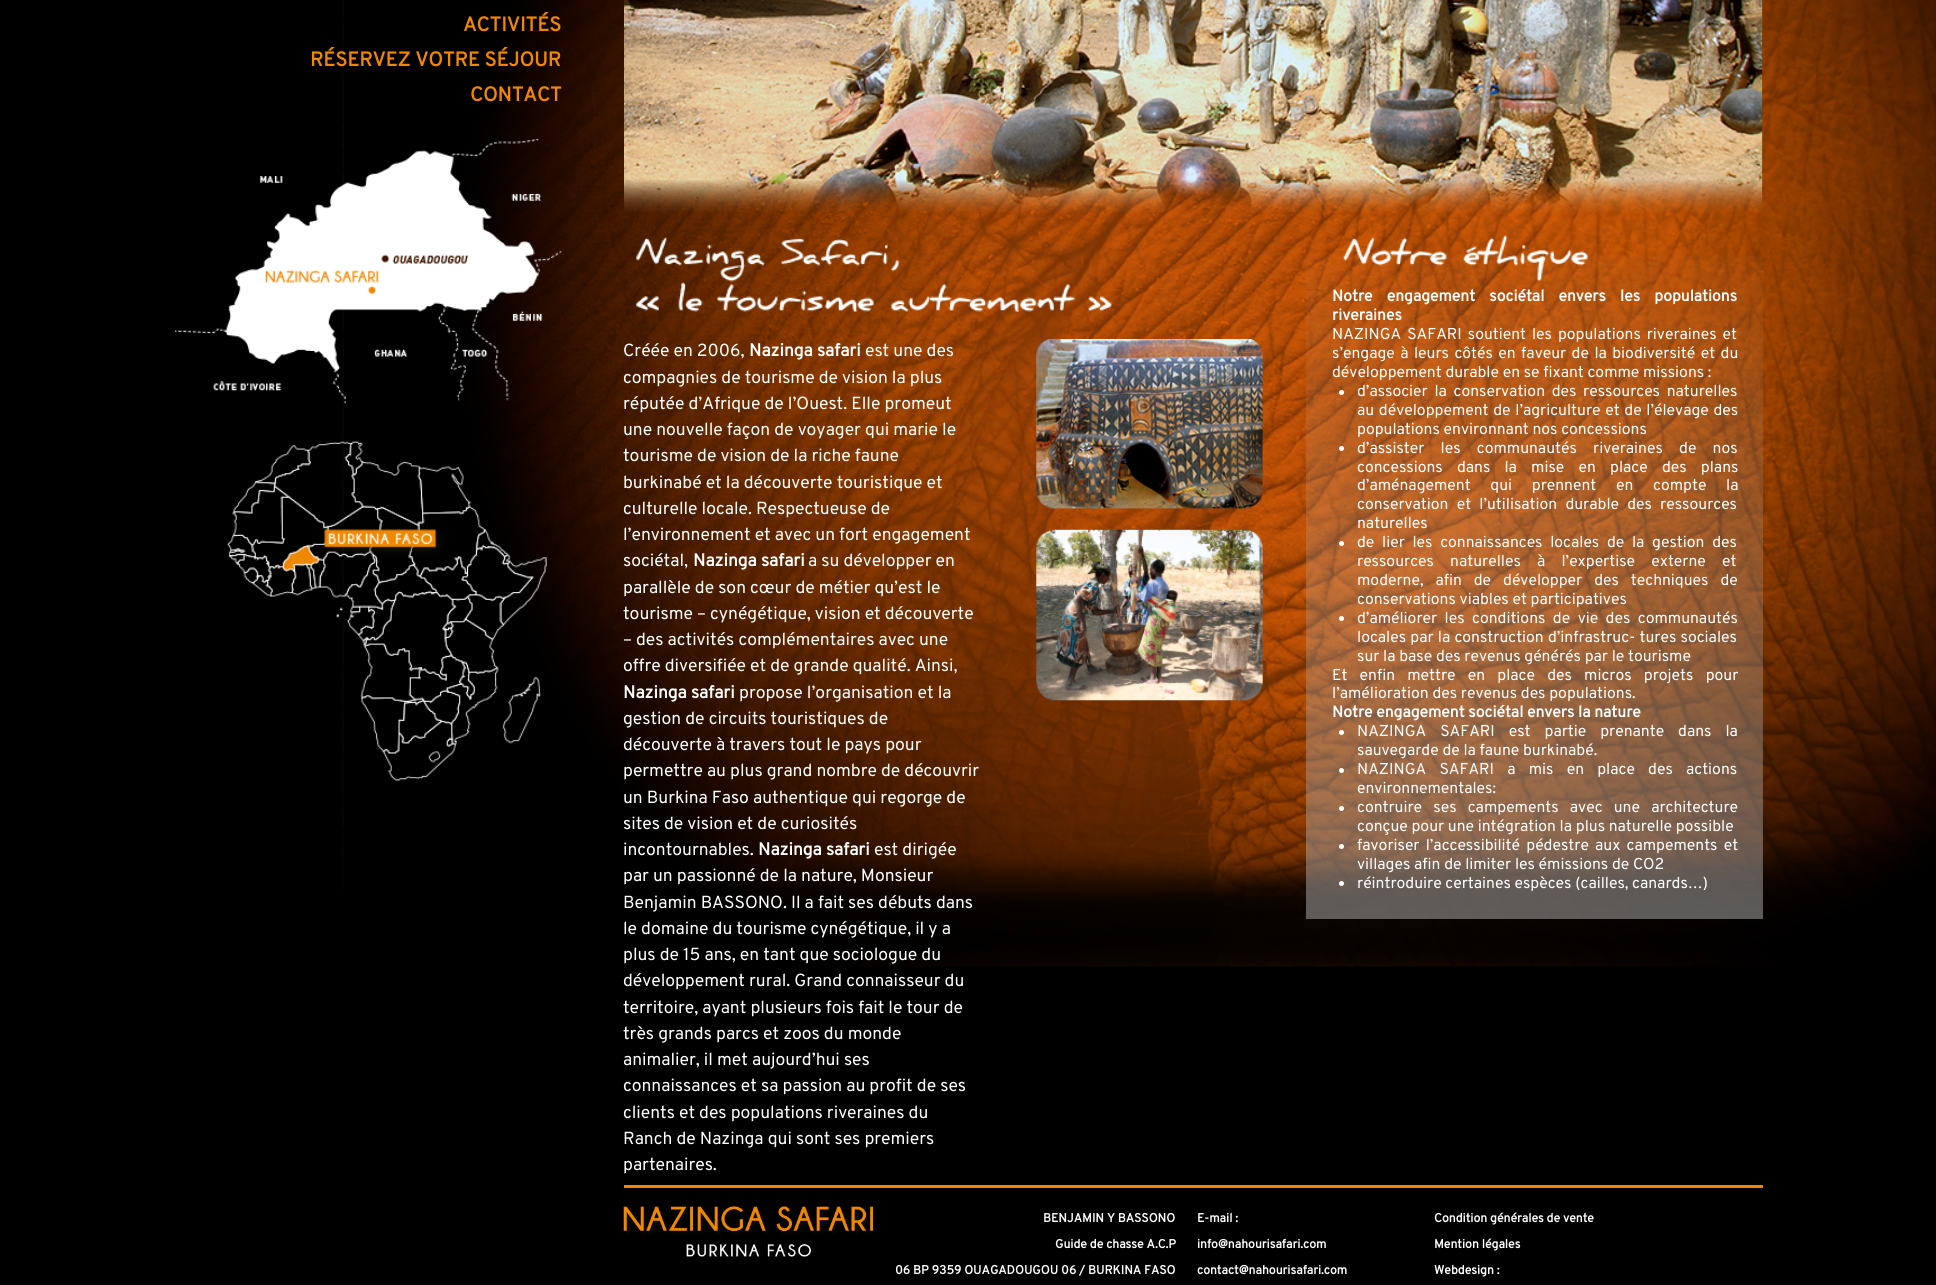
#include <cairo.h>
#include <math.h>
#include <stddef.h>

typedef struct { const char *family; double size; int italic, bold; unsigned color; } style_t;
static cairo_t *ctx;

static void ink(unsigned color) {
    cairo_set_source_rgb(ctx, (color >> 16) / 255.0, (color >> 8 & 255) / 255.0, (color & 255) / 255.0);
}

static void write(double x, double y, const char *s, const style_t *st) {
    cairo_select_font_face(ctx, st->family, st->italic ? CAIRO_FONT_SLANT_ITALIC : CAIRO_FONT_SLANT_NORMAL,
        st->bold ? CAIRO_FONT_WEIGHT_BOLD : CAIRO_FONT_WEIGHT_NORMAL);
    cairo_set_font_size(ctx, st->size);
    ink(st->color);
    cairo_move_to(ctx, x, y);
    cairo_show_text(ctx, s);
}

static void write_spaced(double x, double y, const char *s, double letter, double word) {
    cairo_move_to(ctx, x, y);
    while (*s) {
        char ch[5] = {0};
        int n = 0;
        do ch[n++] = *s++; while ((*s & 0xC0) == 0x80);
        cairo_show_text(ctx, ch);
        cairo_rel_move_to(ctx, letter + word * (*ch == ' '), 0);
    }
}

static void block(double x, double y, double w, double h, unsigned color) {
    ink(color);
    cairo_rectangle(ctx, x, y, w, h);
    cairo_fill(ctx);
}

static void paste(const char *path, double x, double y, double w, double h) {
    cairo_surface_t *image = cairo_image_surface_create_from_png(path);
    cairo_save(ctx);
    cairo_set_source_surface(ctx, image, x, y);
    cairo_rectangle(ctx, x, y, w, h);
    cairo_fill(ctx);
    cairo_restore(ctx);
    cairo_surface_destroy(image);
}

static const style_t s1 = {"Overpass", 20, 0, 1, 0xf08700};
static const style_t s2 = {"Overpass", 17.5, 0, 0, 0xffffff};
static const style_t s3 = {"Overpass", 17.5, 0, 1, 0xffffff};
static const style_t s4 = {"Overpass", 15.75, 0, 1, 0xffffff};
static const style_t s5 = {"Overpass", 15.75, 0, 0, 0xffffff};
static const style_t s6 = {"Overpass", 12.25, 0, 1, 0xffffff};

int main(void) {
    cairo_surface_t *surface = cairo_image_surface_create(CAIRO_FORMAT_RGB24, 1936, 1285);
    ctx = cairo_create(surface);
    cairo_font_options_t *options = cairo_font_options_create();
    cairo_font_options_set_hint_metrics(options, CAIRO_HINT_METRICS_OFF);
    cairo_font_options_set_hint_style(options, CAIRO_HINT_STYLE_NONE);
    cairo_set_font_options(ctx, options);
    cairo_set_miter_limit(ctx, 4);
    cairo_pattern_t *gradient;
    ink(0x000000);
    cairo_paint(ctx);
    paste("pic1.png", 342, 0, 1594, 967);
    write(463, 31, "ACTIVITÉS", &s1);
    write(310, 66, "RÉSERVEZ VOTRE SÉJOUR", &s1);
    write(470, 101, "CONTACT", &s1);
    paste("pic2.png", 175, 139, 387, 642);
    paste("pic3.png", 624, 0, 1139, 212);
    paste("pic4.png", 636, 237, 476, 75);
    write(623, 356, "Créée en 2006,", &s2);
    write(749, 356, "Nazinga safari", &s3);
    write(865, 356, "est une des", &s2);
    write(623, 383, "compagnies de tourisme de vision la plus", &s2);
    write(623, 409, "réputée d’Afrique de l’Ouest. Elle promeut", &s2);
    write(623, 435, "une nouvelle façon de voyager qui marie le", &s2);
    write(623, 461, "tourisme de vision de la riche faune", &s2);
    write(623, 488, "burkinabé et la découverte touristique et", &s2);
    write(623, 514, "culturelle locale. Respectueuse de", &s2);
    write(623, 540, "l’environnement et avec un fort engagement", &s2);
    write(623, 566, "sociétal,", &s2);
    write(693, 566, "Nazinga safari", &s3);
    write(808, 566, "a su développer en", &s2);
    write(623, 593, "parallèle de son cœur de métier qu’est le", &s2);
    write(623, 619, "tourisme – cynégétique, vision et découverte", &s2);
    write(623, 645, "– des activités complémentaires avec une", &s2);
    write(623, 671, "offre diversifiée et de grande qualité. Ainsi,", &s2);
    write(623, 698, "Nazinga safari", &s3);
    write(739, 698, "propose l’organisation et la", &s2);
    write(623, 724, "gestion de circuits touristiques de", &s2);
    write(623, 750, "découverte à travers tout le pays pour", &s2);
    write(623, 776, "permettre au plus grand nombre de découvrir", &s2);
    write(623, 803, "un Burkina Faso authentique qui regorge de", &s2);
    write(623, 829, "sites de vision et de curiosités", &s2);
    write(623, 855, "incontournables.", &s2);
    write(758, 855, "Nazinga safari", &s3);
    write(874, 855, "est dirigée", &s2);
    write(623, 881, "par un passionné de la nature, Monsieur", &s2);
    write(623, 908, "Benjamin BASSONO. Il a fait ses débuts dans", &s2);
    write(623, 934, "le domaine du tourisme cynégétique, il y a", &s2);
    write(623, 960, "plus de 15 ans, en tant que sociologue du", &s2);
    write(623, 986, "développement rural. Grand connaisseur du", &s2);
    write(623, 1013, "territoire, ayant plusieurs fois fait le tour de", &s2);
    write(623, 1039, "très grands parcs et zoos du monde", &s2);
    write(623, 1065, "animalier, il met aujourd’hui ses", &s2);
    write(623, 1091, "connaissances et sa passion au profit de ses", &s2);
    write(623, 1118, "clients et des populations riveraines du", &s2);
    write(623, 1144, "Ranch de Nazinga qui sont ses premiers", &s2);
    write(623, 1170, "partenaires.", &s2);
    paste("pic5.png", 1036, 339, 227, 362);
    gradient = cairo_pattern_create_linear(1534, 919, 1534, 226);
    cairo_pattern_add_color_stop_rgba(gradient, 0, 0.706, 0.706, 0.706, 0.5);
    cairo_pattern_add_color_stop_rgba(gradient, 1, 0.706, 0.706, 0.706, 0);
    cairo_set_source(ctx, gradient);
    cairo_pattern_destroy(gradient);
    cairo_rectangle(ctx, 1306, 256, 457, 663);
    cairo_fill(ctx);
    paste("pic6.png", 1343, 235, 245, 47);
    cairo_select_font_face(ctx, "Overpass", CAIRO_FONT_SLANT_NORMAL, CAIRO_FONT_WEIGHT_BOLD);
    cairo_set_font_size(ctx, 15.75);
    ink(0xffffff);
    write_spaced(1332, 301, "Notre engagement sociétal envers les populations", 0, 10.5);
    write(1332, 320, "riveraines", &s4);
    cairo_select_font_face(ctx, "Overpass", CAIRO_FONT_SLANT_NORMAL, CAIRO_FONT_WEIGHT_NORMAL);
    write_spaced(1332, 339, "NAZINGA SAFARI soutient les populations riveraines et", 0, 2.25);
    write_spaced(1332, 358, "s’engage à leurs côtés en faveur de la biodiversité et du", 0, 1.75);
    write(1332, 377, "développement durable en se fixant comme missions :", &s5);
    cairo_new_path(ctx);
    cairo_arc(ctx, 1341.5, 392.5, 2.5, 0, 2 * M_PI);
    cairo_fill(ctx);
    write_spaced(1357, 396, "d’associer la conservation des ressources naturelles", 0, 3);
    write_spaced(1357, 415, "au développement de l’agriculture et de l’élevage des", 0, 1);
    write(1357, 434, "populations environnant nos concessions", &s5);
    cairo_new_path(ctx);
    cairo_arc(ctx, 1341.5, 448.5, 2.5, 0, 2 * M_PI);
    cairo_fill(ctx);
    write_spaced(1357, 453, "d’assister les communautés riveraines de nos", 0, 12.5);
    write_spaced(1357, 472, "concessions dans la mise en place des plans", 0, 10.5);
    write_spaced(1357, 490, "d’aménagement qui prennent en compte la", 0, 16);
    write_spaced(1357, 509, "conservation et l’utilisation durable des ressources", 0, 4.5);
    write(1357, 528, "naturelles", &s5);
    cairo_new_path(ctx);
    cairo_arc(ctx, 1341.5, 543.5, 2.5, 0, 2 * M_PI);
    cairo_fill(ctx);
    write_spaced(1357, 547, "de lier les connaissances locales de la gestion des", 0, 4);
    write_spaced(1357, 566, "ressources naturelles à l’expertise externe et", 0, 12.5);
    write_spaced(1357, 585, "moderne, afin de développer des techniques de", 0, 8.25);
    write(1357, 604, "conservations viables et participatives", &s5);
    cairo_new_path(ctx);
    cairo_arc(ctx, 1341.5, 618.5, 2.5, 0, 2 * M_PI);
    cairo_fill(ctx);
    write_spaced(1357, 623, "d’améliorer les conditions de vie des communautés", 0, 3.75);
    write_spaced(1357, 642, "locales par la construction d’infrastruc- tures sociales", 0, 0.5);
    write(1357, 661, "sur la base des revenus générés par le tourisme", &s5);
    write_spaced(1332, 680, "Et enfin mettre en place des micros projets pour", 0, 8.5);
    write(1332, 698, "l’amélioration des revenus des populations.", &s5);
    write(1332, 717, "Notre engagement sociétal envers la nature", &s4);
    cairo_new_path(ctx);
    cairo_arc(ctx, 1341.5, 732.5, 2.5, 0, 2 * M_PI);
    cairo_fill(ctx);
    cairo_select_font_face(ctx, "Overpass", CAIRO_FONT_SLANT_NORMAL, CAIRO_FONT_WEIGHT_NORMAL);
    write_spaced(1357, 736, "NAZINGA SAFARI est partie prenante dans la", 0, 10.25);
    write(1357, 755, "sauvegarde de la faune burkinabé.", &s5);
    cairo_new_path(ctx);
    cairo_arc(ctx, 1341.5, 770.5, 2.5, 0, 2 * M_PI);
    cairo_fill(ctx);
    write_spaced(1357, 774, "NAZINGA SAFARI a mis en place des actions", 0, 9.5);
    write(1357, 793, "environnementales:", &s5);
    cairo_new_path(ctx);
    cairo_arc(ctx, 1341.5, 808.5, 2.5, 0, 2 * M_PI);
    cairo_fill(ctx);
    write_spaced(1357, 812, "contruire ses campements avec une architecture", 0, 7.5);
    write(1357, 831, "conçue pour une intégration la plus naturelle possible", &s5);
    cairo_new_path(ctx);
    cairo_arc(ctx, 1341.5, 846.5, 2.5, 0, 2 * M_PI);
    cairo_fill(ctx);
    write_spaced(1357, 850, "favoriser l’accessibilité pédestre aux campements et", 0, 2.5);
    write(1357, 869, "villages afin de limiter les émissions de CO2", &s5);
    cairo_new_path(ctx);
    cairo_arc(ctx, 1341.5, 883.5, 2.5, 0, 2 * M_PI);
    cairo_fill(ctx);
    write(1357, 888, "réintroduire certaines espèces (cailles, canards…)", &s5);
    block(624, 1185, 1139, 3, 0xf08700);
    paste("pic7.png", 623, 1206, 250, 51);
    write(1043, 1222, "BENJAMIN Y BASSONO", &s6);
    write(1055, 1248, "Guide de chasse A.C.P", &s6);
    write(895, 1274, "06 BP 9359 OUAGADOUGOU 06 / BURKINA FASO", &s6);
    write(1197, 1222, "E-mail :", &s6);
    write(1197, 1248, "info@nahourisafari.com", &s6);
    write(1197, 1274, "contact@nahourisafari.com", &s6);
    write(1434, 1222, "Condition générales de vente", &s6);
    write(1434, 1248, "Mention légales", &s6);
    write(1434, 1274, "Webdesign :", &s6);
    cairo_surface_write_to_png(surface, "screenshot.png");
    cairo_font_options_destroy(options);
    cairo_destroy(ctx);
    cairo_surface_destroy(surface);
    return 0;
}
